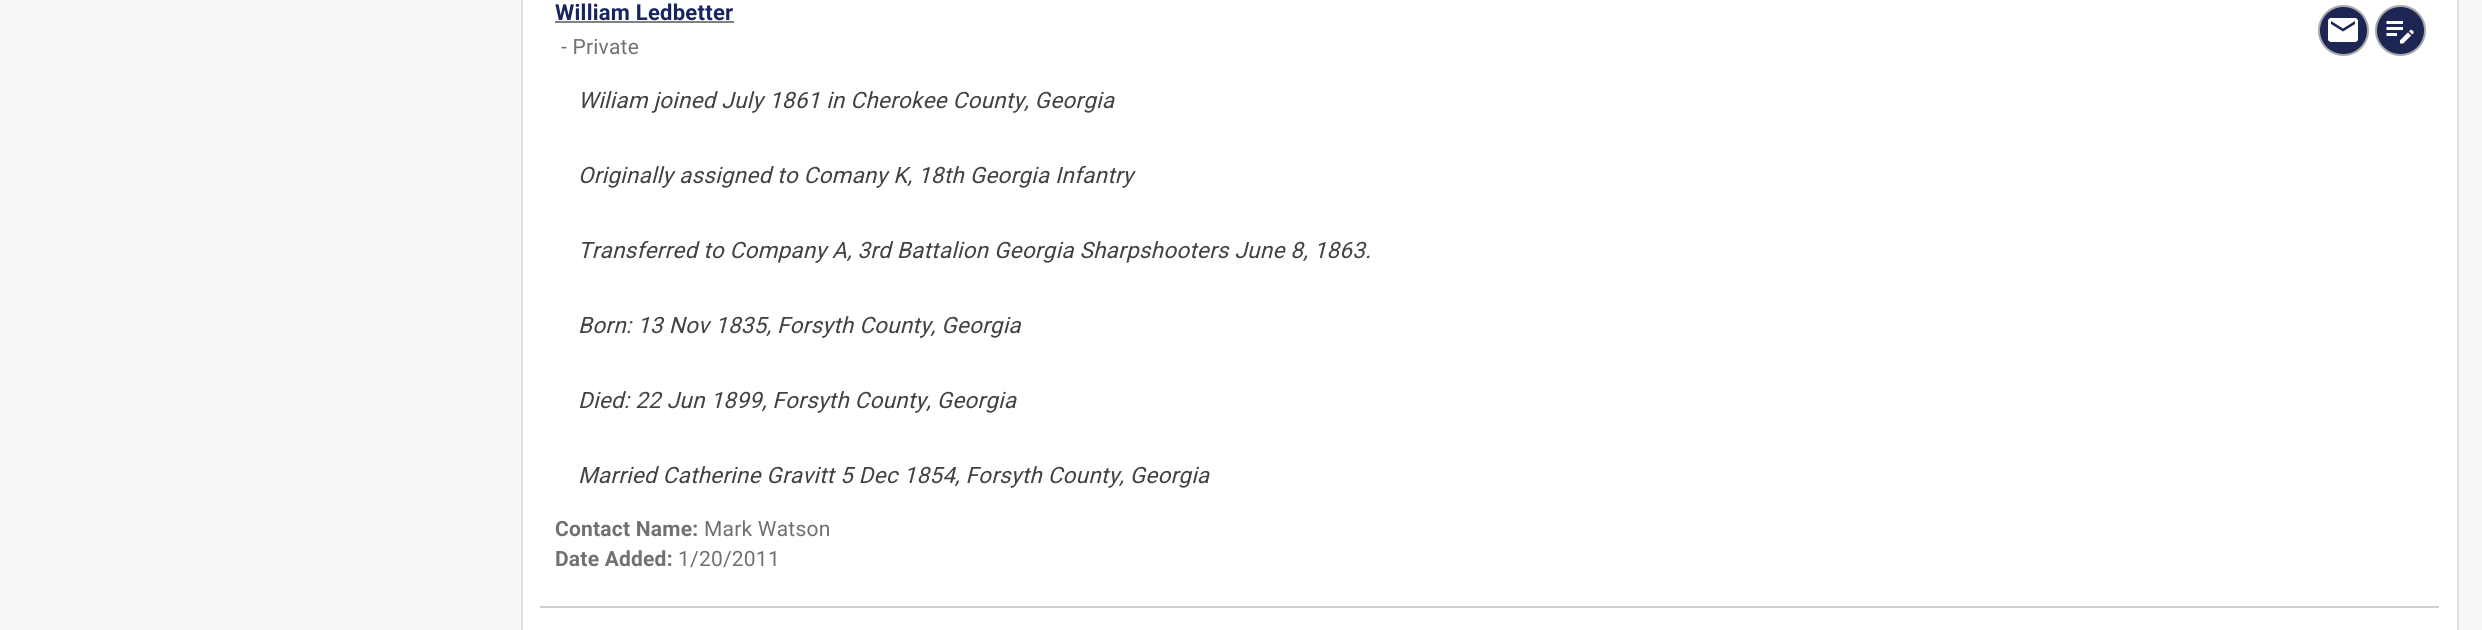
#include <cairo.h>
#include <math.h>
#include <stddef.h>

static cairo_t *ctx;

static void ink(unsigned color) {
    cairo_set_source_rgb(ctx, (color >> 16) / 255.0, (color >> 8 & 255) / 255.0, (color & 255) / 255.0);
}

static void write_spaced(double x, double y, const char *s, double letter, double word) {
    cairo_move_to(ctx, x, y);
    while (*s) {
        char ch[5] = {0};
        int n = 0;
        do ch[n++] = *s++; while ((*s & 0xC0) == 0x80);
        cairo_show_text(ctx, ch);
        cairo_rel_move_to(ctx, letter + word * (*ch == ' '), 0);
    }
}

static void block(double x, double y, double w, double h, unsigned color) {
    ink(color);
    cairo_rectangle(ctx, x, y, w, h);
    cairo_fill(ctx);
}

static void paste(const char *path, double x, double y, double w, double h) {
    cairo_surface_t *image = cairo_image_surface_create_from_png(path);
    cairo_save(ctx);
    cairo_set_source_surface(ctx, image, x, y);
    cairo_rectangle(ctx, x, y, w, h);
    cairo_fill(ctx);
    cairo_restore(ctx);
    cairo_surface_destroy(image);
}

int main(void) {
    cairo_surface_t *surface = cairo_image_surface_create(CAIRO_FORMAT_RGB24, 2482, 630);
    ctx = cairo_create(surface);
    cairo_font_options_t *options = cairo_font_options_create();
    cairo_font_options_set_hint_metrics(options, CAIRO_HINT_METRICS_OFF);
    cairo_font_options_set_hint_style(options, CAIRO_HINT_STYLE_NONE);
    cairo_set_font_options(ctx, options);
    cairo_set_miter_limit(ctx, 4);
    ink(0xf7f7f7);
    cairo_paint(ctx);
    ink(0xffffff);
    cairo_rectangle(ctx, 522, -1, 1936, 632);
    cairo_fill_preserve(ctx);
    ink(0xe0dfdc);
    cairo_stroke(ctx);
    cairo_select_font_face(ctx, "Roboto", CAIRO_FONT_SLANT_NORMAL, CAIRO_FONT_WEIGHT_BOLD);
    cairo_set_font_size(ctx, 22);
    ink(0x172460);
    write_spaced(555, 20, "William Ledbetter", 0.25, 0);
    block(555, 21, 179, 2, 0x808080);
    cairo_select_font_face(ctx, "Roboto", CAIRO_FONT_SLANT_NORMAL, CAIRO_FONT_WEIGHT_NORMAL);
    cairo_set_font_size(ctx, 21);
    ink(0x717171);
    write_spaced(561, 54, "- Private", 0.22, 0);
    ink(0x1d2653);
    cairo_new_path(ctx);
    cairo_arc(ctx, 2343.5, 30.5, 24.5, 0, 2 * M_PI);
    cairo_fill_preserve(ctx);
    ink(0xa9a9a9);
    cairo_stroke(ctx);
    paste("pic1.png", 2328, 18, 30, 24);
    ink(0x1d2653);
    cairo_arc(ctx, 2400.5, 30.5, 24.5, 0, 2 * M_PI);
    cairo_fill_preserve(ctx);
    ink(0xa9a9a9);
    cairo_stroke(ctx);
    paste("pic2.png", 2386, 21, 28, 23);
    cairo_select_font_face(ctx, "Roboto", CAIRO_FONT_SLANT_ITALIC, CAIRO_FONT_WEIGHT_NORMAL);
    cairo_set_font_size(ctx, 22.5);
    ink(0x424242);
    write_spaced(578, 108, "Wiliam joined July 1861 in Cherokee County, Georgia", 0.22, 0);
    write_spaced(578, 183, "Originally assigned to Comany K, 18th Georgia Infantry", 0.22, 0);
    write_spaced(578, 258, "Transferred to Company A, 3rd Battalion Georgia Sharpshooters June 8, 1863.", 0.22, 0);
    write_spaced(578, 333, "Born: 13 Nov 1835, Forsyth County, Georgia", 0.22, 0);
    write_spaced(578, 408, "Died: 22 Jun 1899, Forsyth County, Georgia", 0.22, 0);
    write_spaced(578, 483, "Married Catherine Gravitt 5 Dec 1854, Forsyth County, Georgia", 0.22, 0);
    cairo_select_font_face(ctx, "Roboto", CAIRO_FONT_SLANT_NORMAL, CAIRO_FONT_WEIGHT_BOLD);
    cairo_set_font_size(ctx, 21);
    ink(0x717171);
    write_spaced(555, 536, "Contact Name:", 0.22, 0);
    cairo_select_font_face(ctx, "Roboto", CAIRO_FONT_SLANT_NORMAL, CAIRO_FONT_WEIGHT_NORMAL);
    write_spaced(704, 536, "Mark Watson", 0.22, 0);
    cairo_select_font_face(ctx, "Roboto", CAIRO_FONT_SLANT_NORMAL, CAIRO_FONT_WEIGHT_BOLD);
    write_spaced(555, 566, "Date Added:", 0.22, 0);
    cairo_select_font_face(ctx, "Roboto", CAIRO_FONT_SLANT_NORMAL, CAIRO_FONT_WEIGHT_NORMAL);
    write_spaced(678, 566, "1/20/2011", 0.22, 0);
    block(540, 606, 1899, 2, 0xd0d0d0);
    cairo_surface_write_to_png(surface, "screenshot.png");
    cairo_font_options_destroy(options);
    cairo_destroy(ctx);
    cairo_surface_destroy(surface);
    return 0;
}
